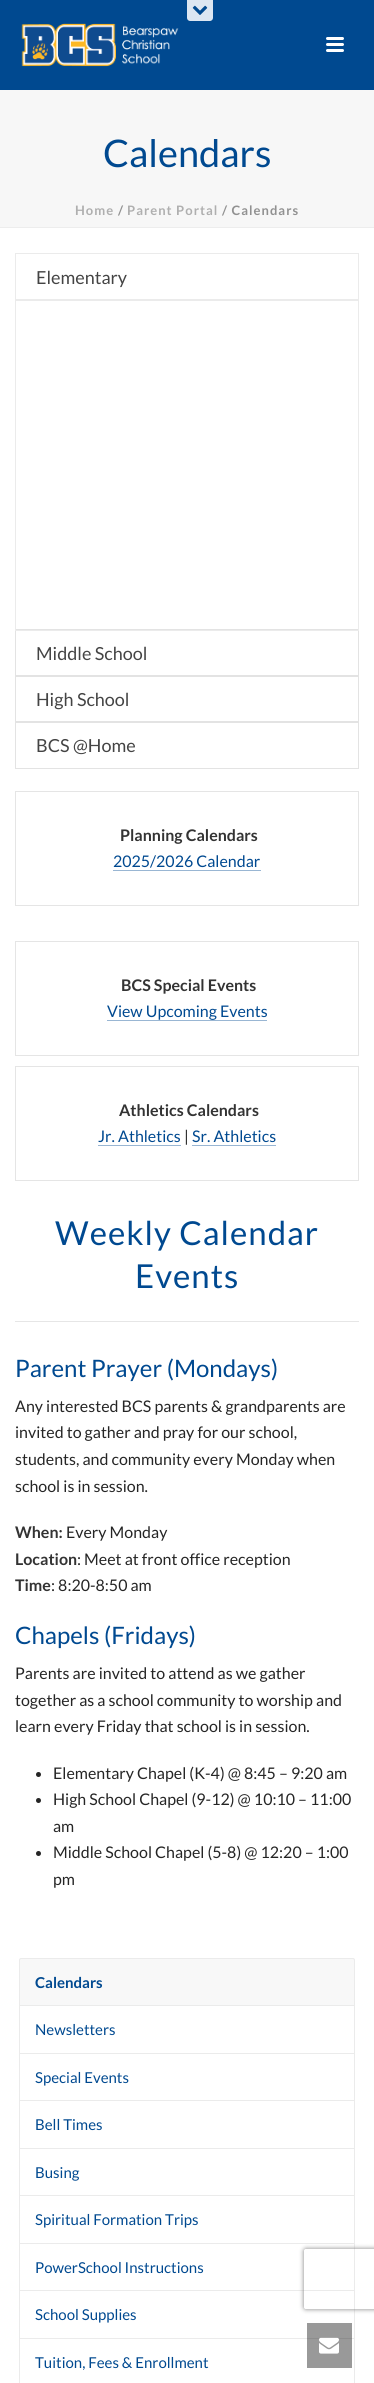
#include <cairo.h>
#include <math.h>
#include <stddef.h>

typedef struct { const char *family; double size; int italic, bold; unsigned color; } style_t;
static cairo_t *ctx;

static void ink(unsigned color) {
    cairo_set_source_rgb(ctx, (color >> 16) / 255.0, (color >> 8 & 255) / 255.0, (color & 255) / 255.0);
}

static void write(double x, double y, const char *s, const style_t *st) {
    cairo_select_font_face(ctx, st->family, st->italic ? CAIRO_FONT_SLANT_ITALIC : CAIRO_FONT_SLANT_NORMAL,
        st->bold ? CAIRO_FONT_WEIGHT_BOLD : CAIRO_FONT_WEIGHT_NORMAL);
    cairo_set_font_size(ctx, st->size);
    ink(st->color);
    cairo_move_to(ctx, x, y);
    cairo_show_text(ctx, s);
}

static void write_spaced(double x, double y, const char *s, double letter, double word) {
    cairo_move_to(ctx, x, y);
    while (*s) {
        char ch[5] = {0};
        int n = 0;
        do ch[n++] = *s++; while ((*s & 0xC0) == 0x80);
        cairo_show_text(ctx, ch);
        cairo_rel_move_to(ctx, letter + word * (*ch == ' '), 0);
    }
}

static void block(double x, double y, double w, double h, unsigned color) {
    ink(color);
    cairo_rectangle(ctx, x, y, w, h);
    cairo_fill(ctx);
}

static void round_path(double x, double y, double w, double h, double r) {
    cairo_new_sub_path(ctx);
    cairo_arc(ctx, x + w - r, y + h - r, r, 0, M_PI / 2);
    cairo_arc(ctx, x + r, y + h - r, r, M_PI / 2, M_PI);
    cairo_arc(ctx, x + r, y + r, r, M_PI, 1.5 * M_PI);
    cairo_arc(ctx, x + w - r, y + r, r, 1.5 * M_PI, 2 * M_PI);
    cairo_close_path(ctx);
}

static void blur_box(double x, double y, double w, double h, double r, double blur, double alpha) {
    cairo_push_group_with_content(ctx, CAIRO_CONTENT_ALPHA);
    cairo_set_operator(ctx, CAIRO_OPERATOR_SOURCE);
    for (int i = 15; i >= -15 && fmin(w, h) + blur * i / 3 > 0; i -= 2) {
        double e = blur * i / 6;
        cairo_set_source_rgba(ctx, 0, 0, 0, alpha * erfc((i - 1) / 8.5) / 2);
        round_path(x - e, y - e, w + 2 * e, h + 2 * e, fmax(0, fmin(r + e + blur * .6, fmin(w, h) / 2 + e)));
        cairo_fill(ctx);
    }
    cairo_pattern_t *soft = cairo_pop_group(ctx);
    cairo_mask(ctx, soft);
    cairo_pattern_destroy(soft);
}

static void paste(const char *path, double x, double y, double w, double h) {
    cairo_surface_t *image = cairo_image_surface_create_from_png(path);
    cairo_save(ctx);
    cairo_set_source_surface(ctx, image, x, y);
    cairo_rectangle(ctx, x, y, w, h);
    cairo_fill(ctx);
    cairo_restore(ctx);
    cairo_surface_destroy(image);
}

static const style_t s1 = {"Lato", 38, 0, 0, 0x004990};
static const style_t s2 = {"Lato", 18, 0, 0, 0x444444};
static const style_t s3 = {"Lato", 16, 0, 1, 0x333333};
static const style_t s4 = {"Lato", 16, 0, 0, 0x004990};
static const style_t s5 = {"Lato", 16, 0, 0, 0x252525};
static const style_t s6 = {"Lato", 24, 0, 0, 0x004990};
static const style_t s7 = {"Lato", 15, 0, 1, 0x004990};
static const style_t s8 = {"Lato", 15, 0, 0, 0x004990};

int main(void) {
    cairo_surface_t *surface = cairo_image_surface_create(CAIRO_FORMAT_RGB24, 374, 2383);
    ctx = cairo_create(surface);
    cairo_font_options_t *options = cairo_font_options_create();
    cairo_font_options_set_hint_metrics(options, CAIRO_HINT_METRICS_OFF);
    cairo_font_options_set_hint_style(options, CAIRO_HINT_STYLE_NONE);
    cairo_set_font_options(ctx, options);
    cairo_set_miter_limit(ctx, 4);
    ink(0xffffff);
    cairo_paint(ctx);
    block(307, 2323, 45, 45, 0x999999);
    block(0, 90, 374, 137, 0xf7f7f7);
    block(0, 227, 374, 1, 0xededed);
    block(0, 0, 374, 90, 0x004990);
    ink(0xdce6f2);
    cairo_new_path(ctx);
    cairo_move_to(ctx, 187, 0);
    cairo_line_to(ctx, 213, 0);
    cairo_line_to(ctx, 213, 18);
    cairo_curve_to(ctx, 213, 19.5, 211.5, 21, 210, 21);
    cairo_line_to(ctx, 190, 21);
    cairo_curve_to(ctx, 188.5, 21, 187, 19.5, 187, 18);
    cairo_close_path(ctx);
    cairo_fill(ctx);
    paste("pic1.png", 192, 5, 16, 10);
    paste("pic2.png", 21, 23, 158, 44);
    ink(0xffffff);
    round_path(326, 37, 18, 3, 1.5);
    cairo_fill(ctx);
    round_path(326, 43, 18, 3, 1.5);
    cairo_fill(ctx);
    round_path(326, 49, 18, 3, 1.5);
    cairo_fill(ctx);
    write(103, 167, "Calendars", &s1);
    cairo_select_font_face(ctx, "Lato", CAIRO_FONT_SLANT_NORMAL, CAIRO_FONT_WEIGHT_BOLD);
    cairo_set_font_size(ctx, 13);
    ink(0xafafaf);
    write_spaced(75, 215, "Home", 1, 0);
    ink(0x919191);
    write_spaced(118, 215, "/", 1, 0);
    ink(0xafafaf);
    write_spaced(127, 215, "Parent Portal", 1, 0);
    ink(0x919191);
    write_spaced(222, 215, "/ Calendars", 1, 0);
    cairo_rectangle(ctx, 15.5, 253.5, 343, 47);
    ink(0xebebeb);
    cairo_set_line_width(ctx, 1);
    cairo_stroke(ctx);
    write(36, 284, "Elementary", &s2);
    cairo_rectangle(ctx, 15.5, 629.5, 343, 47);
    ink(0xe3e3e3);
    cairo_stroke(ctx);
    cairo_rectangle(ctx, 15.5, 299.5, 343, 331);
    ink(0xebebeb);
    cairo_stroke(ctx);
    write(36, 660, "Middle School", &s2);
    cairo_rectangle(ctx, 15.5, 675.5, 343, 47);
    ink(0xe3e3e3);
    cairo_stroke(ctx);
    write(36, 706, "High School", &s2);
    cairo_rectangle(ctx, 15.5, 721.5, 343, 47);
    ink(0xe3e3e3);
    cairo_stroke(ctx);
    write(36, 752, "BCS @Home", &s2);
    cairo_rectangle(ctx, 15.5, 791.5, 343, 114);
    ink(0xe5e5e5);
    cairo_stroke(ctx);
    write(120, 841, "Planning Calendars", &s3);
    write(113, 867, "2025/2026 Calendar", &s4);
    block(113, 870, 148, 1, 0x99b6d3);
    cairo_rectangle(ctx, 15.5, 941.5, 343, 114);
    ink(0xe5e5e5);
    cairo_stroke(ctx);
    write(121, 991, "BCS Special Events", &s3);
    write(107, 1017, "View Upcoming Events", &s4);
    block(107, 1020, 160, 1, 0x99b6d3);
    cairo_rectangle(ctx, 15.5, 1066.5, 343, 114);
    ink(0xe5e5e5);
    cairo_stroke(ctx);
    write(119, 1116, "Athletics Calendars", &s3);
    write(98, 1142, "Jr. Athletics", &s4);
    block(98, 1145, 83, 1, 0x99b6d3);
    write(184, 1142, "|", &s5);
    write(192, 1142, "Sr. Athletics", &s4);
    block(192, 1145, 84, 1, 0x99b6d3);
    cairo_set_font_size(ctx, 33);
    ink(0x004990);
    write_spaced(55, 1245, "Weekly Calendar", 1, 0);
    write_spaced(135, 1288, "Events", 1, 0);
    block(15, 1321, 344, 1, 0xe6e6e6);
    write(15, 1377, "Parent Prayer (Mondays)", &s6);
    write(15, 1412, "Any interested BCS parents & grandparents are", &s5);
    write(15, 1438, "invited to gather and pray for our school,", &s5);
    write(15, 1465, "students, and community every Monday when", &s5);
    write(15, 1492, "school is in session.", &s5);
    write(15, 1538, "When:", &s3);
    write(66, 1538, "Every Monday", &s5);
    write(15, 1565, "Location", &s3);
    write(77, 1565, ": Meet at front office reception", &s5);
    write(15, 1591, "Time", &s3);
    write(51, 1591, ": 8:20-8:50 am", &s5);
    write(15, 1644, "Chapels (Fridays)", &s6);
    write(15, 1679, "Parents are invited to attend as we gather", &s5);
    write(15, 1706, "together as a school community to worship and", &s5);
    write(15, 1732, "learn every Friday that school is in session.", &s5);
    cairo_new_path(ctx);
    cairo_arc(ctx, 38.5, 1774.5, 2.5, 0, 2 * M_PI);
    cairo_fill(ctx);
    write(53, 1779, "Elementary Chapel (K-4) @ 8:45 – 9:20 am", &s5);
    cairo_new_path(ctx);
    cairo_arc(ctx, 38.5, 1800.5, 2.5, 0, 2 * M_PI);
    cairo_fill(ctx);
    write(53, 1805, "High School Chapel (9-12) @ 10:10 – 11:00", &s5);
    write(53, 1832, "am", &s5);
    cairo_new_path(ctx);
    cairo_arc(ctx, 38.5, 1853.5, 2.5, 0, 2 * M_PI);
    cairo_fill(ctx);
    write(53, 1858, "Middle School Chapel (5-8) @ 12:20 – 1:00", &s5);
    write(53, 1885, "pm", &s5);
    round_path(19.5, 1958.5, 335, 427, 1.5);
    ink(0xebebeb);
    cairo_stroke(ctx);
    block(20, 2005, 334, 1, 0xebebeb);
    cairo_set_source_rgba(ctx, 0, 0, 0, 0.03);
    cairo_rectangle(ctx, 20, 1959, 334, 46);
    cairo_fill(ctx);
    write(35, 1988, "Calendars", &s7);
    block(20, 2053, 334, 1, 0xebebeb);
    write(35, 2035, "Newsletters", &s8);
    block(20, 2100, 334, 1, 0xebebeb);
    write(35, 2083, "Special Events", &s8);
    block(20, 2148, 334, 1, 0xebebeb);
    write(35, 2130, "Bell Times", &s8);
    block(20, 2195, 334, 1, 0xebebeb);
    write(35, 2178, "Busing", &s8);
    block(20, 2243, 334, 1, 0xebebeb);
    write(35, 2225, "Spiritual Formation Trips", &s8);
    block(20, 2290, 334, 1, 0xebebeb);
    write(35, 2273, "PowerSchool Instructions", &s8);
    block(20, 2338, 334, 1, 0xebebeb);
    block(307, 2338, 45, 1, 0x8d8d8d);
    write(35, 2320, "School Supplies", &s8);
    write(35, 2368, "Tuition, Fees & Enrollment", &s8);
    cairo_save(ctx);
    cairo_set_fill_rule(ctx, CAIRO_FILL_RULE_EVEN_ODD);
    cairo_new_path(ctx);
    cairo_move_to(ctx, 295, 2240);
    cairo_line_to(ctx, 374, 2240);
    cairo_line_to(ctx, 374, 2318);
    cairo_line_to(ctx, 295, 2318);
    cairo_close_path(ctx);
    cairo_move_to(ctx, 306, 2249);
    cairo_line_to(ctx, 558, 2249);
    cairo_curve_to(ctx, 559, 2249, 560, 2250, 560, 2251);
    cairo_line_to(ctx, 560, 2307);
    cairo_curve_to(ctx, 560, 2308, 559, 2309, 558, 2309);
    cairo_line_to(ctx, 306, 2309);
    cairo_curve_to(ctx, 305, 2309, 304, 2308, 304, 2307);
    cairo_line_to(ctx, 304, 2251);
    cairo_curve_to(ctx, 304, 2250, 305, 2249, 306, 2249);
    cairo_close_path(ctx);
    cairo_clip(ctx);
    ink(0x808080);
    blur_box(304, 2249, 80, 60, 2, 2.5, 1);
    cairo_restore(ctx);
    paste("pic3.png", 319, 2337, 20, 17);
    cairo_surface_write_to_png(surface, "screenshot.png");
    cairo_font_options_destroy(options);
    cairo_destroy(ctx);
    cairo_surface_destroy(surface);
    return 0;
}
